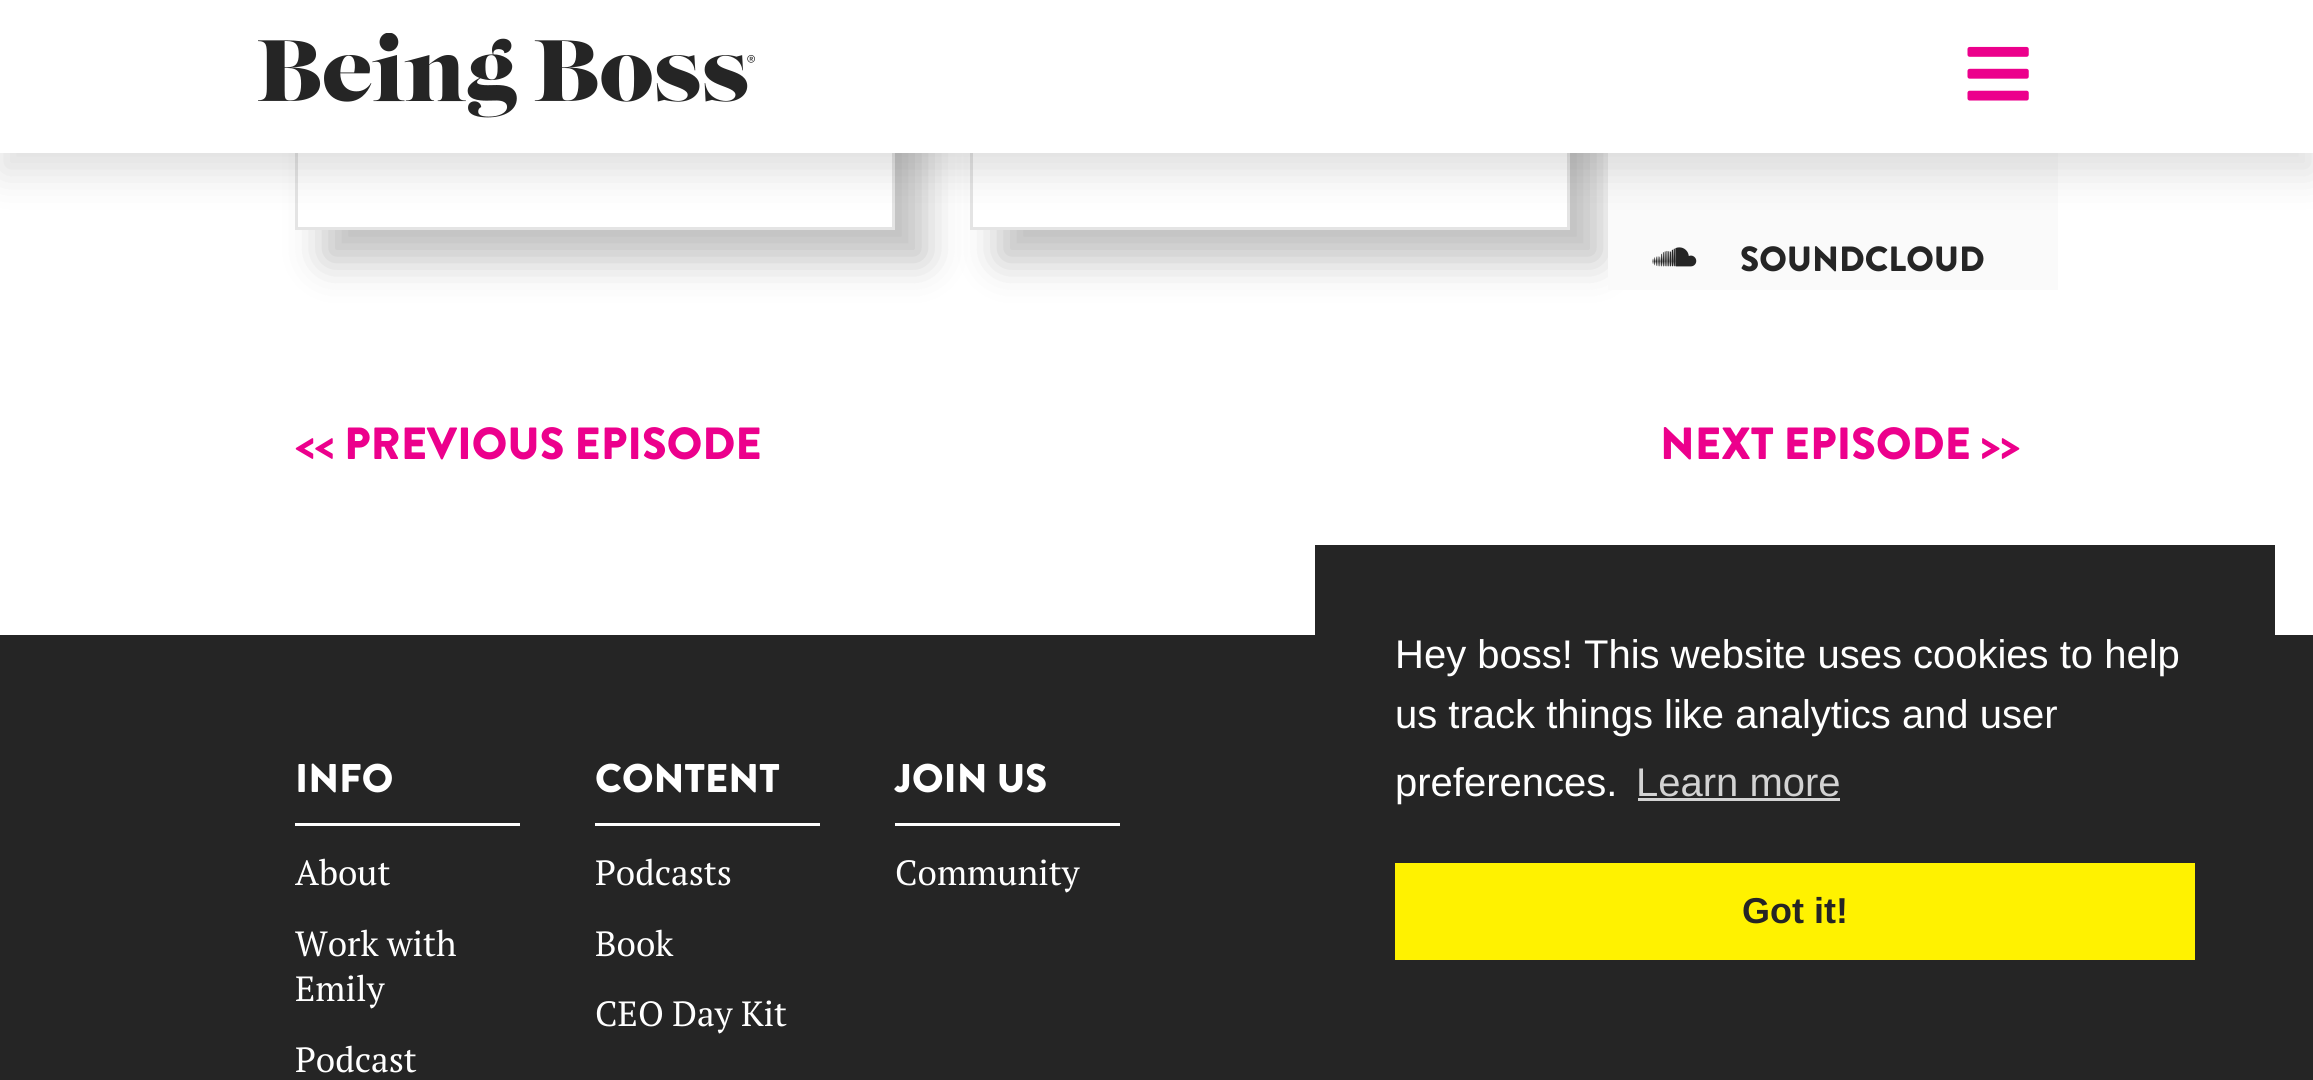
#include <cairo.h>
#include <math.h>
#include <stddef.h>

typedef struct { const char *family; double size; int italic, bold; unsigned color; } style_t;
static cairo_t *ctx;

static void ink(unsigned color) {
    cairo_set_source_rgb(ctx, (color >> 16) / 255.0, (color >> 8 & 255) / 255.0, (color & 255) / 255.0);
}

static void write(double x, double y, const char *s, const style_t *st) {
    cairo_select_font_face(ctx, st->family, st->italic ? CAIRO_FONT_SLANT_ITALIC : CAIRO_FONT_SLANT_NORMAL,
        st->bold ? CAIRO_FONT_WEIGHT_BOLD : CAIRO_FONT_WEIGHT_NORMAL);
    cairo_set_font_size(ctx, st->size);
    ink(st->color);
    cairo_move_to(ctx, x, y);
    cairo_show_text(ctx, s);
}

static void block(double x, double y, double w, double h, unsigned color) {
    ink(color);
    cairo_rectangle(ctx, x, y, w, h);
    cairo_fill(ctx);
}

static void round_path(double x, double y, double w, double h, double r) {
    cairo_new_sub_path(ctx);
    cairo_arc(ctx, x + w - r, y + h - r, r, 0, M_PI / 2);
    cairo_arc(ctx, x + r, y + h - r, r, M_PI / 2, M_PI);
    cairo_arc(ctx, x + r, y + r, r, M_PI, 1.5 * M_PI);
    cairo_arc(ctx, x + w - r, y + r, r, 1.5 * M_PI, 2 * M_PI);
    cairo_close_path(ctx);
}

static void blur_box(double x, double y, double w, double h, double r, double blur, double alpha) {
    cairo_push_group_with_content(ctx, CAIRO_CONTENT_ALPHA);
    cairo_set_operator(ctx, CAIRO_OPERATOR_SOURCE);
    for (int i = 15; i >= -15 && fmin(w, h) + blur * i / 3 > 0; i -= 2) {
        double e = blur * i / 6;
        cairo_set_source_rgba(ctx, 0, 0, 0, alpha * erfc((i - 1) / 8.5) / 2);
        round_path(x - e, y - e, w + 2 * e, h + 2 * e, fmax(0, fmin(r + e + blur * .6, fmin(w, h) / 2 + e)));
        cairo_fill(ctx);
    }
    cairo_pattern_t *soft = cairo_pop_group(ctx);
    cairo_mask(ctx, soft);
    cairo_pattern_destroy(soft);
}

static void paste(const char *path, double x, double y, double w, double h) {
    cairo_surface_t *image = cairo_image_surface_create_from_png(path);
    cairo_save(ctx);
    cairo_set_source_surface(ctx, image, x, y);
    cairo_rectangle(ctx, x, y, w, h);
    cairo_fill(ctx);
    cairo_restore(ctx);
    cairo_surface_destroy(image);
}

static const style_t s1 = {"Brandon Grotesque Black", 35, 0, 0, 0x252525};
static const style_t s2 = {"Brandon Grotesque Black", 45, 0, 0, 0xec008c};
static const style_t s3 = {"Brandon Grotesque Black", 40, 0, 0, 0xffffff};
static const style_t s4 = {"PT Serif", 35, 0, 0, 0xffffff};
static const style_t s5 = {"Liberation Sans", 40, 0, 0, 0xffffff};
static const style_t s6 = {"Liberation Sans", 40, 0, 0, 0xd3d3d3};
static const style_t s7 = {"Liberation Sans", 36, 0, 1, 0x252525};

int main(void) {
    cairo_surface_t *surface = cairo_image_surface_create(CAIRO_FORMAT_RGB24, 2313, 1080);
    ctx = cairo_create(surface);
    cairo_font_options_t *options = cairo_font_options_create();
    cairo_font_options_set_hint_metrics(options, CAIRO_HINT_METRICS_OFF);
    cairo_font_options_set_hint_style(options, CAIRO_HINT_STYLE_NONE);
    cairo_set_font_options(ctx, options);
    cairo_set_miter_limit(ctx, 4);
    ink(0xffffff);
    cairo_paint(ctx);
    cairo_save(ctx);
    cairo_set_fill_rule(ctx, CAIRO_FILL_RULE_EVEN_ODD);
    cairo_new_path(ctx);
    cairo_move_to(ctx, 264, 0);
    cairo_line_to(ctx, 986, 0);
    cairo_line_to(ctx, 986, 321);
    cairo_line_to(ctx, 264, 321);
    cairo_close_path(ctx);
    cairo_move_to(ctx, 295, -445);
    cairo_line_to(ctx, 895, -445);
    cairo_line_to(ctx, 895, 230);
    cairo_line_to(ctx, 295, 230);
    cairo_close_path(ctx);
    cairo_clip(ctx);
    ink(0x000000);
    blur_box(325, -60, 600, 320, 0, 20, 0.25);
    cairo_restore(ctx);
    cairo_rectangle(ctx, 296.5, -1.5, 597, 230);
    ink(0xe4e4e4);
    cairo_set_line_width(ctx, 3);
    cairo_stroke(ctx);
    cairo_save(ctx);
    cairo_set_fill_rule(ctx, CAIRO_FILL_RULE_EVEN_ODD);
    cairo_new_path(ctx);
    cairo_move_to(ctx, 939, 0);
    cairo_line_to(ctx, 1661, 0);
    cairo_line_to(ctx, 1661, 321);
    cairo_line_to(ctx, 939, 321);
    cairo_close_path(ctx);
    cairo_move_to(ctx, 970, -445);
    cairo_line_to(ctx, 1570, -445);
    cairo_line_to(ctx, 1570, 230);
    cairo_line_to(ctx, 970, 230);
    cairo_close_path(ctx);
    cairo_clip(ctx);
    ink(0x000000);
    blur_box(1000, -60, 600, 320, 0, 20, 0.25);
    cairo_restore(ctx);
    cairo_rectangle(ctx, 971.5, -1.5, 597, 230);
    cairo_stroke(ctx);
    block(1608, 153, 450, 137, 0xfafafa);
    ink(0x252525);
    blur_box(0, 20, 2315, 153, 0, 20, 0.15);
    block(0, 0, 2313, 153, 0xffffff);
    paste("pic1.png", 258, 33, 497, 85);
    paste("pic2.png", 1967, 46, 62, 55);
    paste("pic3.png", 1652, 247, 45, 20);
    write(1740, 271, "SOUNDCLOUD", &s1);
    write(295, 459, "<< PREVIOUS EPISODE", &s2);
    write(1660, 459, "NEXT EPISODE >>", &s2);
    block(0, 635, 2313, 445, 0x252525);
    write(295, 792, "INFO", &s3);
    block(295, 823, 225, 3, 0xffffff);
    write(295, 885, "About", &s4);
    write(295, 956, "Work with", &s4);
    write(295, 1001, "Emily", &s4);
    write(295, 1072, "Podcast", &s4);
    write(595, 792, "CONTENT", &s3);
    block(595, 823, 225, 3, 0xffffff);
    write(595, 885, "Podcasts", &s4);
    write(595, 956, "Book", &s4);
    write(595, 1026, "CEO Day Kit", &s4);
    write(895, 792, "JOIN US", &s3);
    block(895, 823, 225, 3, 0xffffff);
    write(895, 885, "Community", &s4);
    block(1315, 545, 960, 90, 0x252525);
    write(1395, 668, "Hey boss! This website uses cookies to help", &s5);
    write(1395, 728, "us track things like analytics and user", &s5);
    write(1395, 796, "preferences.", &s5);
    write(1636, 796, "Learn more", &s6);
    block(1638, 798, 202, 3, 0xd3d3d3);
    block(1395, 863, 800, 97, 0xfff200);
    write(1742, 923, "Got it!", &s7);
    cairo_surface_write_to_png(surface, "screenshot.png");
    cairo_font_options_destroy(options);
    cairo_destroy(ctx);
    cairo_surface_destroy(surface);
    return 0;
}
